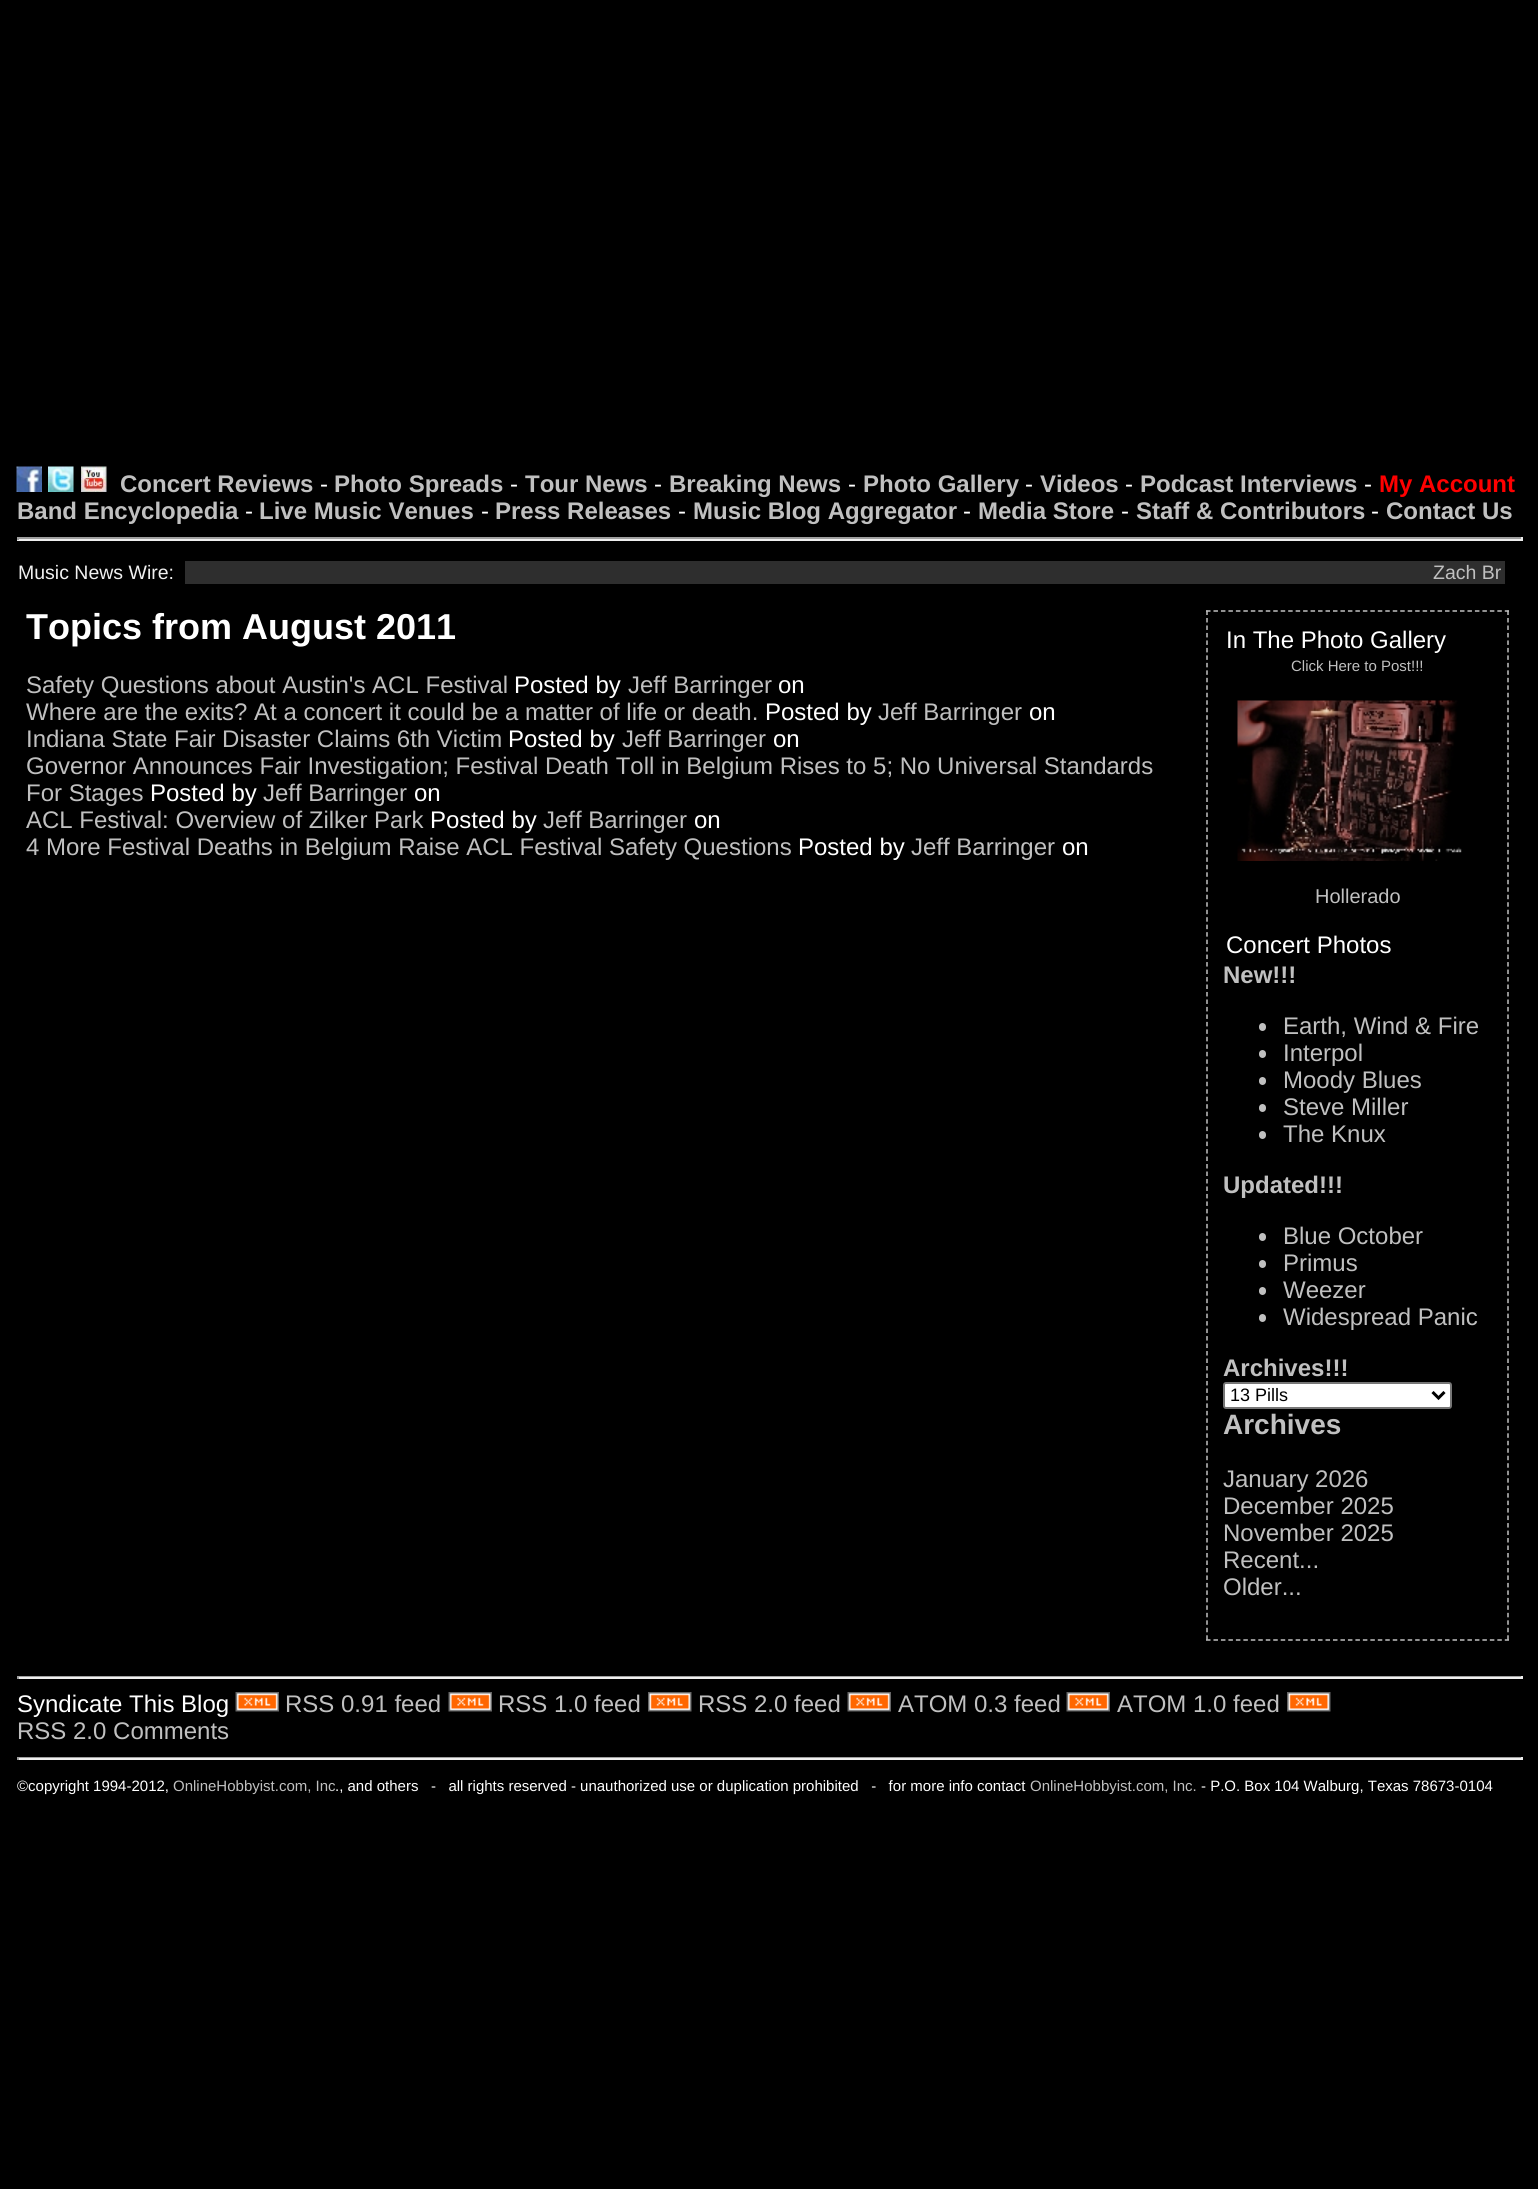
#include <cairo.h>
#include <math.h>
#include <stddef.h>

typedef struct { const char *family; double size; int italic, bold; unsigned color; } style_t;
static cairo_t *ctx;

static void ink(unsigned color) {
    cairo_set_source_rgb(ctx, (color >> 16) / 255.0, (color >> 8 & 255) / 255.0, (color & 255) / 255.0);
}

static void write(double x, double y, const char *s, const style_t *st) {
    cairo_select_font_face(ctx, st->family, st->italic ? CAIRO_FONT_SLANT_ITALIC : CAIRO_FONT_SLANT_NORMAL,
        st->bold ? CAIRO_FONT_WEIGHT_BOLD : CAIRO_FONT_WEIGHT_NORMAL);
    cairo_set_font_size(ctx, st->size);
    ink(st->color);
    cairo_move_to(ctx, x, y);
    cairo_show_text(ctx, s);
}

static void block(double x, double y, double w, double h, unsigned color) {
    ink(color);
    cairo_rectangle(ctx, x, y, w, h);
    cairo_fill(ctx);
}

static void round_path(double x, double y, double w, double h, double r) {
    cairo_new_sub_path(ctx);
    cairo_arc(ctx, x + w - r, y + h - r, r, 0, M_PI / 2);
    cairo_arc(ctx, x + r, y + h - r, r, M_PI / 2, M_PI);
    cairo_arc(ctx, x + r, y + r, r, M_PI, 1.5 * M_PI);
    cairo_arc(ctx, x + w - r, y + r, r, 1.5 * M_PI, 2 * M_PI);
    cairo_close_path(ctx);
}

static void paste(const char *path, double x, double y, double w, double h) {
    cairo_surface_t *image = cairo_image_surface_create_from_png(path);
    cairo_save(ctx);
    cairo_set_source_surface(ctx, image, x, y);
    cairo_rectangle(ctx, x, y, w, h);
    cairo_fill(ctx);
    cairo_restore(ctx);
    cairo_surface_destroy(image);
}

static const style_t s1 = {"Liberation Sans", 24, 0, 1, 0xc0c0c0};
static const style_t s2 = {"Liberation Sans", 24, 0, 0, 0xffffff};
static const style_t s3 = {"Liberation Sans", 24, 0, 1, 0xff0000};
static const style_t s4 = {"Liberation Sans", 19.5, 0, 0, 0xf0f0f0};
static const style_t s5 = {"Liberation Sans", 19.5, 0, 0, 0xc0c0c0};
static const style_t s6 = {"Liberation Sans", 36, 0, 1, 0xffffff};
static const style_t s7 = {"Liberation Sans", 24, 0, 0, 0xc0c0c0};
static const style_t s8 = {"Liberation Sans", 15, 0, 0, 0xc0c0c0};
static const style_t s9 = {"Liberation Sans", 20, 0, 0, 0xc0c0c0};
static const style_t s10 = {"Liberation Sans", 18, 0, 0, 0x000000};
static const style_t s11 = {"Liberation Sans", 28, 0, 1, 0xc0c0c0};
static const style_t s12 = {"Liberation Sans", 15, 0, 0, 0xffffff};

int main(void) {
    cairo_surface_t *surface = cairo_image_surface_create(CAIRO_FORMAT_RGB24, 1538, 2189);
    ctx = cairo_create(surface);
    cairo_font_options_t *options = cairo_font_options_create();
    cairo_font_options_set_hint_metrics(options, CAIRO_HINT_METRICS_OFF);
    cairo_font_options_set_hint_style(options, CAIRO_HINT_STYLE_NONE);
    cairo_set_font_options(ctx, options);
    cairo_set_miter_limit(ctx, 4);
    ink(0x000000);
    cairo_paint(ctx);
    paste("pic1.png", 16, 466, 26, 26);
    paste("pic2.png", 48, 466, 26, 26);
    paste("pic3.png", 81, 466, 26, 26);
    write(120, 492, "Concert Reviews", &s1);
    write(320, 492, "-", &s2);
    write(334, 492, "Photo Spreads", &s1);
    write(510, 492, "-", &s2);
    write(525, 492, "Tour News", &s1);
    write(654, 492, "-", &s2);
    write(669, 492, "Breaking News", &s1);
    write(848, 492, "-", &s2);
    write(863, 492, "Photo Gallery", &s1);
    write(1025, 492, "-", &s2);
    write(1040, 492, "Videos", &s1);
    write(1125, 492, "-", &s2);
    write(1140, 492, "Podcast Interviews", &s1);
    write(1364, 492, "-", &s2);
    write(1379, 492, "My Account", &s3);
    write(17, 519, "Band Encyclopedia", &s1);
    write(245, 519, "-", &s2);
    write(259, 519, "Live Music Venues", &s1);
    write(481, 519, "-", &s2);
    write(495, 519, "Press Releases", &s1);
    write(678, 519, "-", &s2);
    write(693, 519, "Music Blog Aggregator", &s1);
    write(963, 519, "-", &s2);
    write(978, 519, "Media Store", &s1);
    write(1121, 519, "-", &s2);
    write(1136, 519, "Staff & Contributors", &s1);
    write(1371, 519, "-", &s2);
    write(1386, 519, "Contact Us", &s1);
    block(17, 537, 1506, 2, 0x9f9f9f);
    block(1521, 537, 2, 3, 0xeeeeee);
    block(17, 539, 1506, 2, 0xeeeeee);
    block(17, 537, 2, 3, 0x9f9f9f);
    write(18, 579, "Music News Wire:", &s4);
    block(185, 561, 1320, 23, 0x2e2e2e);
    write(1433, 579, "Zach Br", &s5);
    write(26, 639, "Topics from August 2011", &s6);
    write(26, 693, "Safety Questions about Austin's ACL Festival", &s7);
    write(514, 693, "Posted by", &s2);
    write(628, 693, "Jeff Barringer", &s7);
    write(778, 693, "on", &s2);
    write(26, 720, "Where are the exits? At a concert it could be a matter of life or death.", &s7);
    write(765, 720, "Posted by", &s2);
    write(878, 720, "Jeff Barringer", &s7);
    write(1029, 720, "on", &s2);
    write(26, 747, "Indiana State Fair Disaster Claims 6th Victim", &s7);
    write(508, 747, "Posted by", &s2);
    write(622, 747, "Jeff Barringer", &s7);
    write(773, 747, "on", &s2);
    write(26, 774, "Governor Announces Fair Investigation; Festival Death Toll in Belgium Rises to 5; No Universal Standards", &s7);
    write(26, 801, "For Stages", &s7);
    write(150, 801, "Posted by", &s2);
    write(263, 801, "Jeff Barringer", &s7);
    write(414, 801, "on", &s2);
    write(26, 828, "ACL Festival: Overview of Zilker Park", &s7);
    write(430, 828, "Posted by", &s2);
    write(543, 828, "Jeff Barringer", &s7);
    write(694, 828, "on", &s2);
    write(26, 855, "4 More Festival Deaths in Belgium Raise ACL Festival Safety Questions", &s7);
    write(798, 855, "Posted by", &s2);
    write(911, 855, "Jeff Barringer", &s7);
    write(1062, 855, "on", &s2);
    cairo_new_path(ctx);
    cairo_move_to(ctx, 1206, 611);
    cairo_line_to(ctx, 1509, 611);
    ink(0xc0c0c0);
    cairo_set_line_width(ctx, 1.5);
    cairo_set_dash(ctx, (double[]){4.5, 2.97}, 2, 0);
    cairo_stroke(ctx);
    cairo_new_path(ctx);
    cairo_move_to(ctx, 1508, 610.5);
    cairo_line_to(ctx, 1508, 1641);
    cairo_set_dash(ctx, (double[]){4.5, 2.98}, 2, 0);
    cairo_stroke(ctx);
    cairo_new_path(ctx);
    cairo_move_to(ctx, 1206, 1640);
    cairo_line_to(ctx, 1509, 1640);
    cairo_set_dash(ctx, (double[]){4.5, 2.97}, 2, 0);
    cairo_stroke(ctx);
    cairo_new_path(ctx);
    cairo_move_to(ctx, 1207, 610.5);
    cairo_line_to(ctx, 1207, 1641);
    cairo_set_dash(ctx, (double[]){4.5, 2.98}, 2, 0);
    cairo_stroke(ctx);
    write(1226, 648, "In The Photo Gallery", &s2);
    write(1291, 671, "Click Here to Post!!!", &s8);
    paste("pic4.png", 1237, 700, 225, 161);
    write(1315, 903, "Hollerado", &s9);
    write(1226, 953, "Concert Photos", &s2);
    write(1223, 983, "New!!!", &s1);
    round_path(1259, 1023, 7, 8, 3.5);
    cairo_fill(ctx);
    write(1283, 1034, "Earth, Wind & Fire", &s7);
    round_path(1259, 1050, 7, 8, 3.5);
    cairo_fill(ctx);
    write(1283, 1061, "Interpol", &s7);
    round_path(1259, 1077, 7, 8, 3.5);
    cairo_fill(ctx);
    write(1283, 1088, "Moody Blues", &s7);
    round_path(1259, 1104, 7, 8, 3.5);
    cairo_fill(ctx);
    write(1283, 1115, "Steve Miller", &s7);
    round_path(1259, 1131, 7, 8, 3.5);
    cairo_fill(ctx);
    write(1283, 1142, "The Knux", &s7);
    write(1223, 1193, "Updated!!!", &s1);
    round_path(1259, 1233, 7, 8, 3.5);
    cairo_fill(ctx);
    write(1283, 1244, "Blue October", &s7);
    round_path(1259, 1260, 7, 8, 3.5);
    cairo_fill(ctx);
    write(1283, 1271, "Primus", &s7);
    round_path(1259, 1287, 7, 8, 3.5);
    cairo_fill(ctx);
    write(1283, 1298, "Weezer", &s7);
    round_path(1259, 1314, 7, 8, 3.5);
    cairo_fill(ctx);
    write(1283, 1325, "Widespread Panic", &s7);
    write(1223, 1376, "Archives!!!", &s1);
    ink(0xffffff);
    round_path(1224, 1383, 227, 25, 2);
    cairo_fill_preserve(ctx);
    ink(0x767676);
    cairo_set_line_width(ctx, 2);
    cairo_set_dash(ctx, NULL, 0, 0);
    cairo_stroke(ctx);
    cairo_new_path(ctx);
    cairo_move_to(ctx, 1432.5, 1392);
    cairo_line_to(ctx, 1438.5, 1398);
    cairo_line_to(ctx, 1444.5, 1392);
    ink(0x000000);
    cairo_set_line_width(ctx, 3);
    cairo_stroke(ctx);
    write(1230, 1401, "13 Pills", &s10);
    write(1223, 1434, "Archives", &s11);
    write(1223, 1487, "January 2026", &s7);
    write(1223, 1514, "December 2025", &s7);
    write(1223, 1541, "November 2025", &s7);
    write(1223, 1568, "Recent...", &s7);
    write(1223, 1595, "Older...", &s7);
    block(17, 1676, 1506, 1, 0x9f9f9f);
    block(1521, 1676, 2, 3, 0xeeeeee);
    block(17, 1677, 1506, 2, 0xeeeeee);
    block(17, 1676, 2, 3, 0x9f9f9f);
    write(17, 1712, "Syndicate This Blog", &s2);
    paste("pic5.png", 235, 1692, 44, 20);
    write(285, 1712, "RSS 0.91 feed", &s7);
    paste("pic5.png", 448, 1692, 44, 20);
    write(498, 1712, "RSS 1.0 feed", &s7);
    paste("pic6.png", 648, 1692, 44, 20);
    write(698, 1712, "RSS 2.0 feed", &s7);
    paste("pic5.png", 847, 1692, 44, 20);
    write(898, 1712, "ATOM 0.3 feed", &s7);
    paste("pic5.png", 1066, 1692, 44, 20);
    write(1117, 1712, "ATOM 1.0 feed", &s7);
    paste("pic7.png", 1287, 1692, 44, 20);
    write(17, 1739, "RSS 2.0 Comments", &s7);
    block(17, 1757, 1506, 1, 0x9f9f9f);
    block(1521, 1757, 2, 3, 0xeeeeee);
    block(17, 1758, 1506, 2, 0xeeeeee);
    block(17, 1757, 2, 3, 0x9f9f9f);
    write(17, 1791, "©copyright 1994-2012,", &s12);
    write(173, 1791, "OnlineHobbyist.com, Inc", &s8);
    write(335, 1791, "., and others   -   all rights reserved - unauthorized use or duplication prohibited   -   for more info contact", &s12);
    write(1030, 1791, "OnlineHobbyist.com, Inc.", &s8);
    write(1201, 1791, "- P.O. Box 104 Walburg, Texas 78673-0104", &s12);
    cairo_surface_write_to_png(surface, "screenshot.png");
    cairo_font_options_destroy(options);
    cairo_destroy(ctx);
    cairo_surface_destroy(surface);
    return 0;
}
